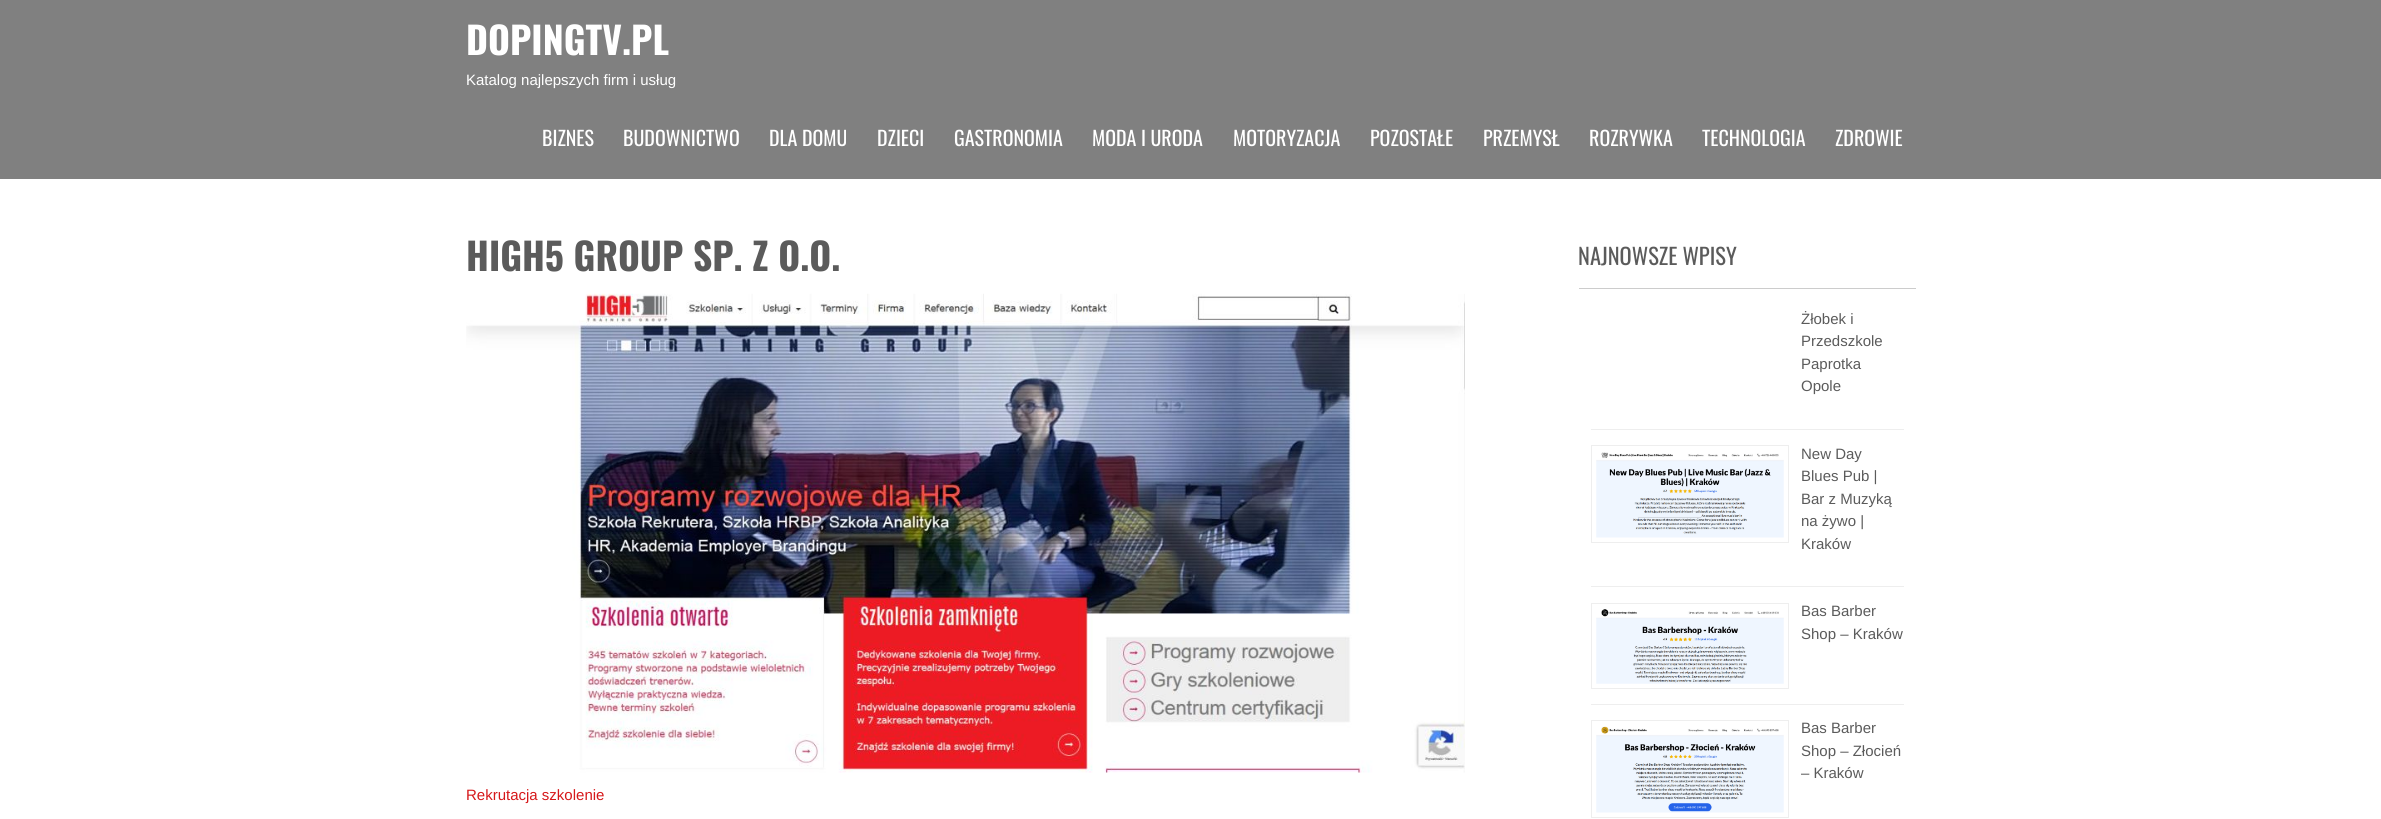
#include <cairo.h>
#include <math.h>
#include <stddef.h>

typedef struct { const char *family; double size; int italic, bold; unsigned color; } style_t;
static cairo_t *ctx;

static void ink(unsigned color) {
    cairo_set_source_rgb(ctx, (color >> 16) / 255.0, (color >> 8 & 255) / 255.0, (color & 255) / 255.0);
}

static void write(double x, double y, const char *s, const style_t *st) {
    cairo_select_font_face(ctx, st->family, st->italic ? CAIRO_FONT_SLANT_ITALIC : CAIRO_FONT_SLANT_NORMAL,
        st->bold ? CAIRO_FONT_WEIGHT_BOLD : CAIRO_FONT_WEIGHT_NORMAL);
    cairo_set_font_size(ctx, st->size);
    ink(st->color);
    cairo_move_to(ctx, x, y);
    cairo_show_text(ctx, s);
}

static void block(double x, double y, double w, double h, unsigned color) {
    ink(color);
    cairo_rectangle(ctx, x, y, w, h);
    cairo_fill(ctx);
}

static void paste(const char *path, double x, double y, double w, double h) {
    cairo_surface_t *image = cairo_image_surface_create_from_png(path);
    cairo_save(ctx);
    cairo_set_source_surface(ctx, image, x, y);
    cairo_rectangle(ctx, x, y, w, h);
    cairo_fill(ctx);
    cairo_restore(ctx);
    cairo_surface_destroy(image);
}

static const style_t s1 = {"Oswald", 37.5, 0, 1, 0xffffff};
static const style_t s2 = {"Liberation Sans", 15, 0, 0, 0xffffff};
static const style_t s3 = {"Oswald", 20, 0, 0, 0xffffff};
static const style_t s4 = {"Oswald", 37.5, 0, 1, 0x5b5b5b};
static const style_t s5 = {"Liberation Sans", 15, 0, 0, 0xd6181a};
static const style_t s6 = {"Oswald", 22.5, 0, 0, 0x5b5b5b};
static const style_t s7 = {"Liberation Sans", 15, 0, 0, 0x5b5b5b};

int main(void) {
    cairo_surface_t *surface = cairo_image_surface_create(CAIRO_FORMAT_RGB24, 2381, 819);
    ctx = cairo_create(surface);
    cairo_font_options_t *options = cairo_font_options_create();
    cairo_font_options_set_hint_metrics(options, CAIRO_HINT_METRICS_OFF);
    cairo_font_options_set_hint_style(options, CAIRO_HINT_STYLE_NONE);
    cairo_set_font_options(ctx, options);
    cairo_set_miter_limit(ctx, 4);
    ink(0xffffff);
    cairo_paint(ctx);
    block(0, 0, 2381, 179, 0x808080);
    write(466, 55, "DOPINGTV.PL", &s1);
    write(466, 85, "Katalog najlepszych firm i usług", &s2);
    write(542, 146, "BIZNES", &s3);
    write(623, 146, "BUDOWNICTWO", &s3);
    write(769, 146, "DLA DOMU", &s3);
    write(877, 146, "DZIECI", &s3);
    write(954, 146, "GASTRONOMIA", &s3);
    write(1092, 146, "MODA I URODA", &s3);
    write(1233, 146, "MOTORYZACJA", &s3);
    write(1370, 146, "POZOSTAŁE", &s3);
    write(1483, 146, "PRZEMYSŁ", &s3);
    write(1589, 146, "ROZRYWKA", &s3);
    write(1702, 146, "TECHNOLOGIA", &s3);
    write(1835, 146, "ZDROWIE", &s3);
    write(466, 271, "HIGH5 GROUP SP. Z O.O.", &s4);
    paste("pic1.png", 466, 293, 999, 480);
    write(466, 800, "Rekrutacja szkolenie", &s5);
    block(1579, 288, 337, 1, 0xcccccc);
    write(1578, 265, "NAJNOWSZE WPISY", &s6);
    block(1591, 429, 313, 1, 0xeeeeee);
    write(1801, 324, "Żłobek i", &s7);
    write(1801, 346, "Przedszkole", &s7);
    write(1801, 369, "Paprotka", &s7);
    write(1801, 391, "Opole", &s7);
    block(1591, 586, 313, 1, 0xeeeeee);
    cairo_rectangle(ctx, 1591.5, 445.5, 197, 97);
    cairo_set_line_width(ctx, 1);
    cairo_stroke(ctx);
    paste("pic2.png", 1596, 452, 188, 86);
    write(1801, 459, "New Day", &s7);
    write(1801, 481, "Blues Pub |", &s7);
    write(1801, 504, "Bar z Muzyką", &s7);
    write(1801, 526, "na żywo |", &s7);
    write(1801, 549, "Kraków", &s7);
    block(1591, 704, 313, 1, 0xeeeeee);
    cairo_rectangle(ctx, 1591.5, 603.5, 197, 85);
    cairo_stroke(ctx);
    paste("pic3.png", 1596, 609, 188, 75);
    write(1801, 616, "Bas Barber", &s7);
    write(1801, 639, "Shop – Kraków", &s7);
    cairo_rectangle(ctx, 1591.5, 720.5, 197, 97);
    ink(0xeeeeee);
    cairo_stroke(ctx);
    paste("pic4.png", 1596, 726, 188, 87);
    write(1801, 733, "Bas Barber", &s7);
    write(1801, 756, "Shop – Złocień", &s7);
    write(1801, 778, "– Kraków", &s7);
    cairo_surface_write_to_png(surface, "screenshot.png");
    cairo_font_options_destroy(options);
    cairo_destroy(ctx);
    cairo_surface_destroy(surface);
    return 0;
}
